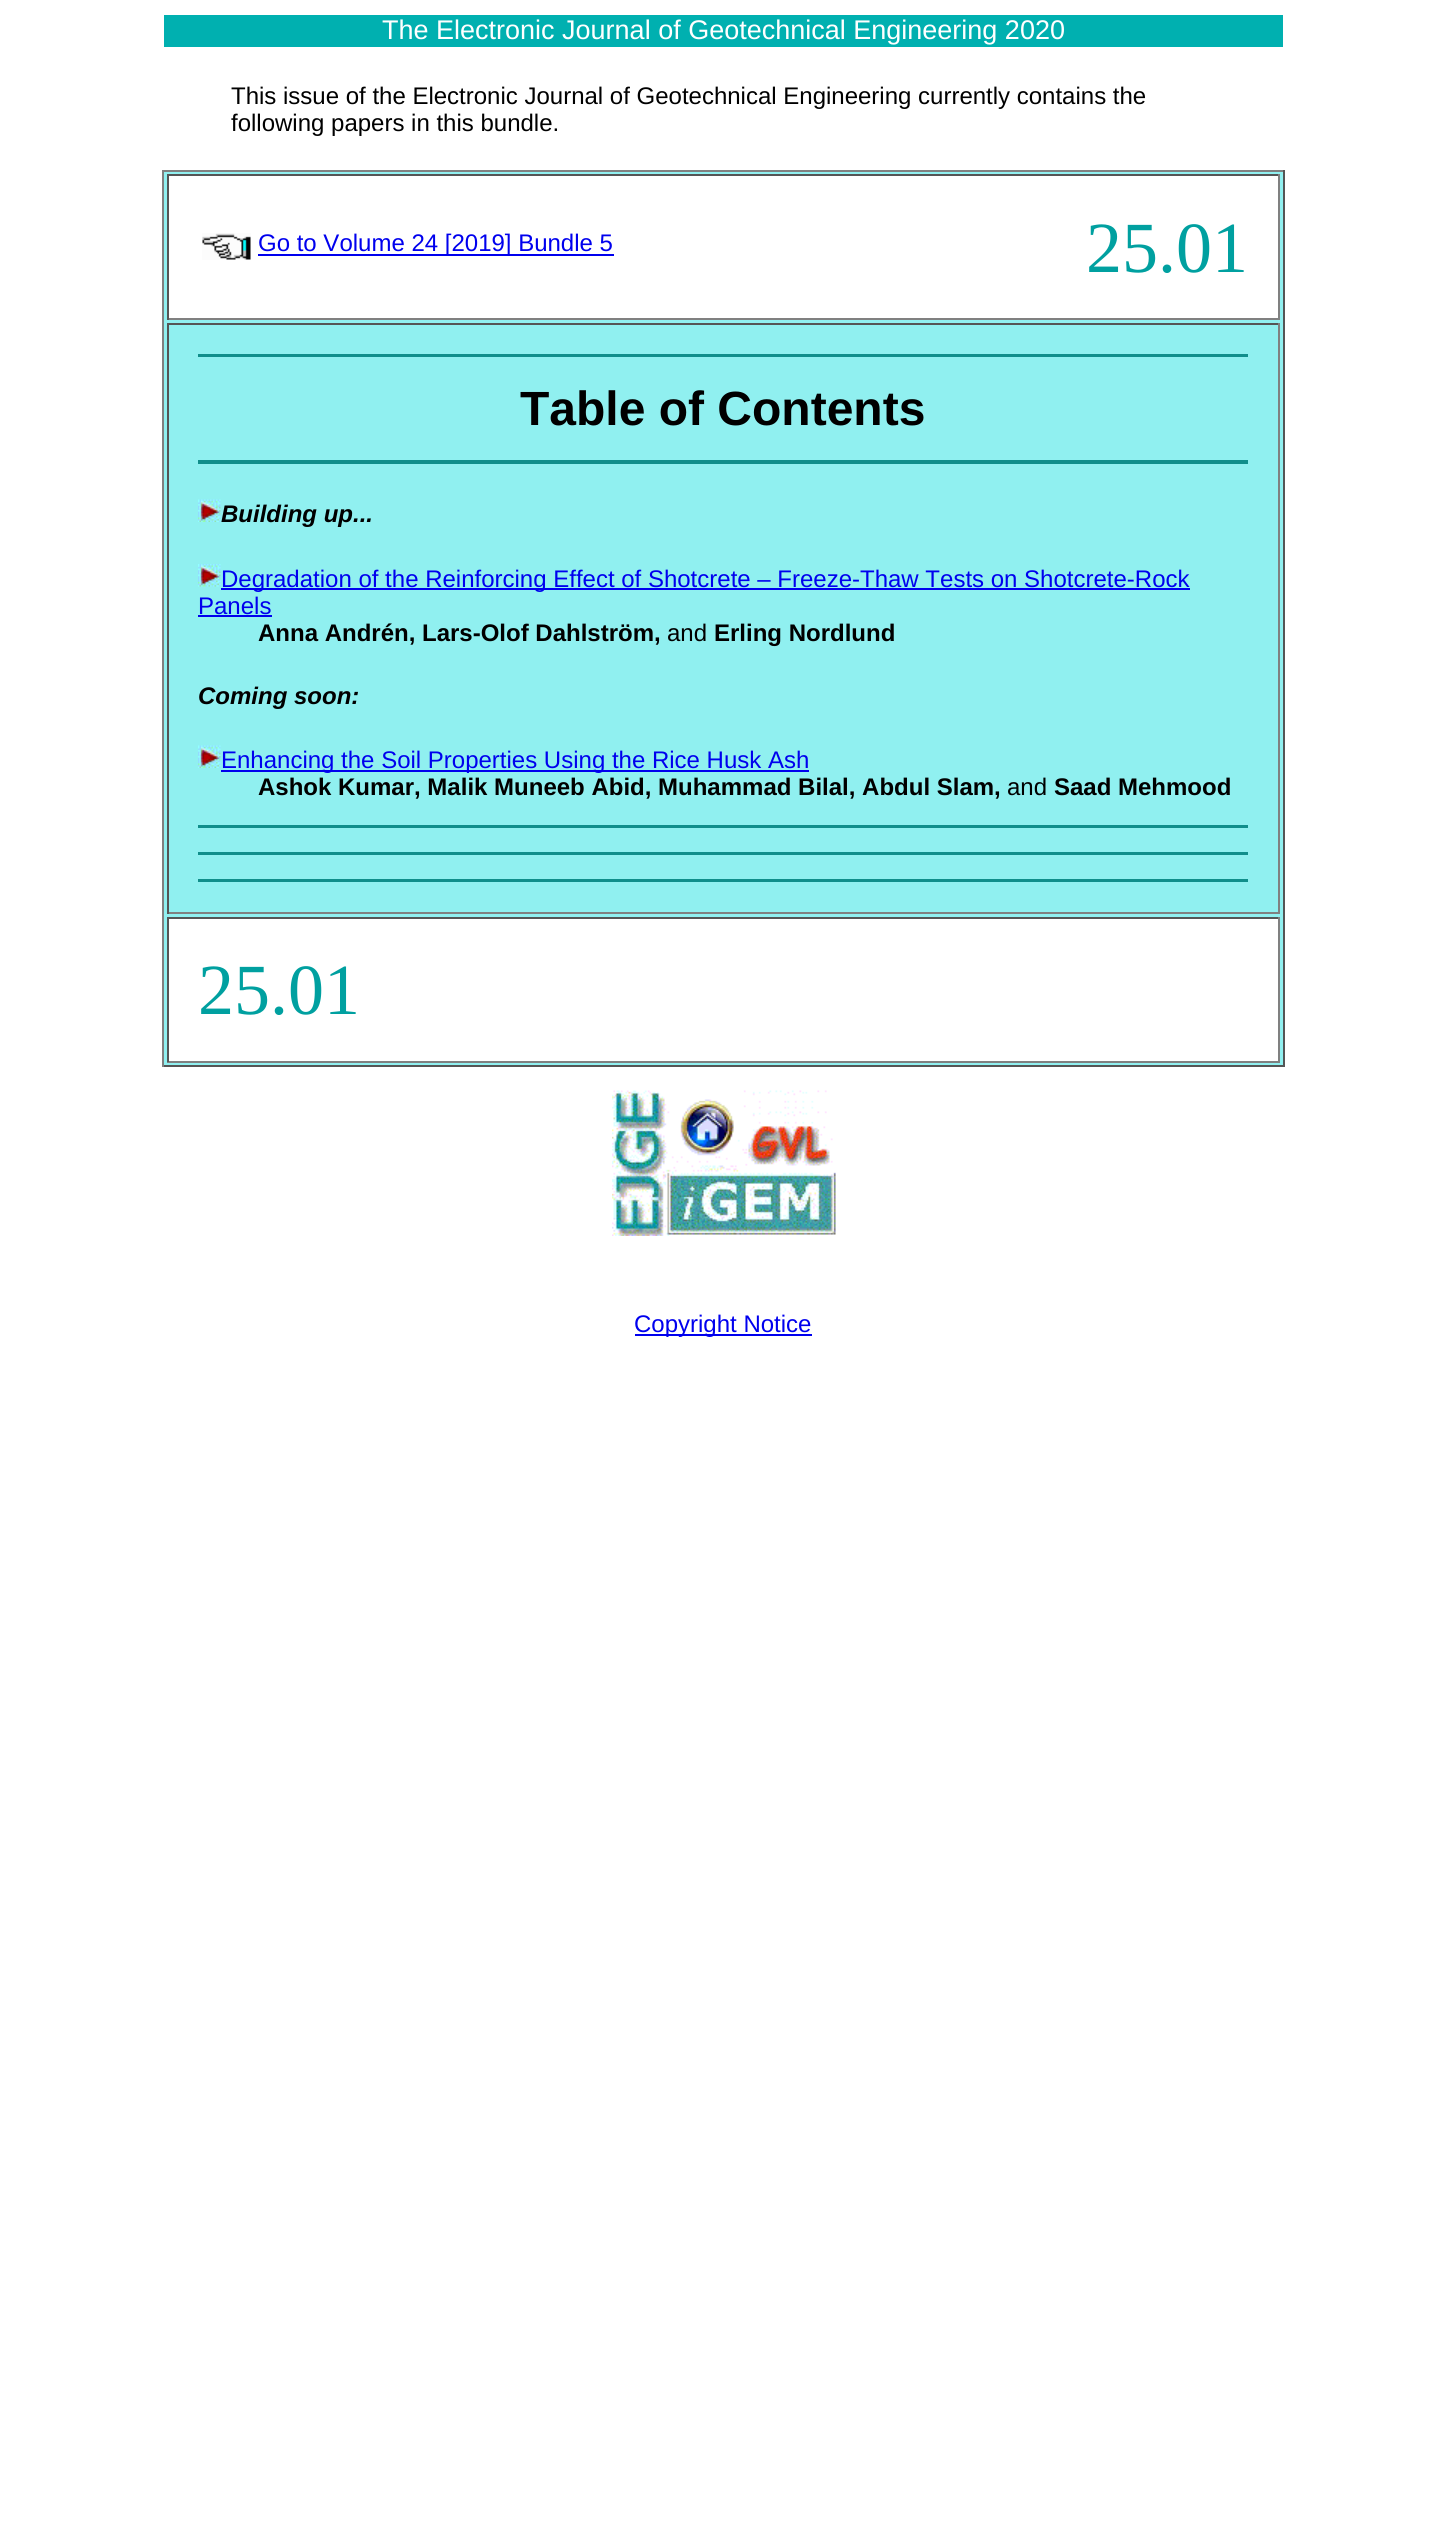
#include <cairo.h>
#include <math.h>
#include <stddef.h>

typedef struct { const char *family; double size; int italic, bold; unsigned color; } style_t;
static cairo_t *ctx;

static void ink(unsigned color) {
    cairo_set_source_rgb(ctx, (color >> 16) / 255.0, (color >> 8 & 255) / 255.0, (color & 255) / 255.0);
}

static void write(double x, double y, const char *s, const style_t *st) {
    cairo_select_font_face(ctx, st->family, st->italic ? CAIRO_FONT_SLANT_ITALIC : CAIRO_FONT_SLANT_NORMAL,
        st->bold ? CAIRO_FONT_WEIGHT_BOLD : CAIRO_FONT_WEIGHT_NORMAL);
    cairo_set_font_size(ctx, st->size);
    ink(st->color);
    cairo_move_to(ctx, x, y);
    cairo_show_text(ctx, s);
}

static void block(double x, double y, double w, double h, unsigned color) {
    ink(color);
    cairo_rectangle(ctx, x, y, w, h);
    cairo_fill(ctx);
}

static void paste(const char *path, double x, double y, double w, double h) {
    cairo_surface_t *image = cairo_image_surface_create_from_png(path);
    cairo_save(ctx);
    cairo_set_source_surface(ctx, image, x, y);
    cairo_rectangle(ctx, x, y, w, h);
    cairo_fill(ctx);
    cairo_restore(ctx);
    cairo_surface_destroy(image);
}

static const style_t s1 = {"Liberation Sans", 27, 0, 0, 0xffffff};
static const style_t s2 = {"Liberation Sans", 24, 0, 0, 0x000000};
static const style_t s3 = {"Liberation Sans", 24, 0, 0, 0x0000ee};
static const style_t s4 = {"Liberation Serif", 72, 0, 0, 0x00a0a0};
static const style_t s5 = {"Liberation Sans", 48, 0, 1, 0x000000};
static const style_t s6 = {"Liberation Sans", 24, 1, 1, 0x000000};
static const style_t s7 = {"Liberation Sans", 24, 0, 1, 0x000000};

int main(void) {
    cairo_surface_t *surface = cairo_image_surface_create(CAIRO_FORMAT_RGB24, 1446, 2543);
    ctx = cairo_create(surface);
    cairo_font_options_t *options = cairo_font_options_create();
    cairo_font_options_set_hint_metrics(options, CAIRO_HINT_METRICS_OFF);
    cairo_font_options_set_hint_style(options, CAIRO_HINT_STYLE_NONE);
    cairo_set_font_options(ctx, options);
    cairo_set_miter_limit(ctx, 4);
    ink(0xffffff);
    cairo_paint(ctx);
    block(164, 15, 1119, 32, 0x00b0b0);
    write(382, 39, "The Electronic Journal of Geotechnical Engineering 2020", &s1);
    write(231, 104, "This issue of the Electronic Journal of Geotechnical Engineering currently contains the", &s2);
    write(231, 131, "following papers in this bundle.", &s2);
    block(164, 172, 1119, 893, 0x90f0f0);
    block(162, 170, 1122, 2, 0x808080);
    block(1283, 170, 2, 897, 0x555555);
    block(162, 1065, 1122, 2, 0x555555);
    block(162, 170, 2, 897, 0x808080);
    block(169, 176, 1109, 142, 0xffffff);
    block(167, 174, 1113, 2, 0x555555);
    block(1278, 174, 2, 146, 0x808080);
    block(167, 318, 1113, 2, 0x808080);
    block(167, 174, 2, 146, 0x555555);
    paste("pic1.png", 202, 233, 49, 27);
    block(258, 254, 356, 2, 0x0000ee);
    write(258, 251, "Go to Volume 24 [2019] Bundle 5", &s3);
    write(1086, 272, "25.01", &s4);
    block(167, 323, 1113, 2, 0x555555);
    block(1278, 323, 2, 591, 0x808080);
    block(167, 912, 1113, 2, 0x808080);
    block(167, 323, 2, 591, 0x555555);
    block(198, 354, 1050, 3, 0x108e8b);
    write(520, 425, "Table of Contents", &s5);
    block(198, 460, 1050, 4, 0x108e8b);
    paste("pic2.png", 198, 499, 23, 23);
    write(221, 522, "Building up...", &s6);
    paste("pic3.png", 198, 564, 23, 23);
    block(221, 588, 969, 2, 0x0000ee);
    write(221, 587, "Degradation of the Reinforcing Effect of Shotcrete – Freeze-Thaw Tests on Shotcrete-Rock", &s3);
    write(198, 614, "Panels", &s3);
    block(198, 615, 74, 2, 0x0000ee);
    write(258, 641, "Anna Andrén, Lars-Olof Dahlström,", &s7);
    write(667, 641, "and", &s2);
    write(714, 641, "Erling Nordlund", &s7);
    write(198, 704, "Coming soon:", &s6);
    paste("pic2.png", 198, 745, 23, 23);
    block(221, 770, 588, 2, 0x0000ee);
    write(221, 768, "Enhancing the Soil Properties Using the Rice Husk Ash", &s3);
    write(258, 795, "Ashok Kumar, Malik Muneeb Abid, Muhammad Bilal, Abdul Slam,", &s7);
    write(1007, 795, "and", &s2);
    write(1054, 795, "Saad Mehmood", &s7);
    block(198, 825, 1050, 3, 0x108e8b);
    block(198, 852, 1050, 3, 0x108e8b);
    block(198, 879, 1050, 3, 0x108e8b);
    block(169, 919, 1109, 142, 0xffffff);
    block(167, 917, 1113, 2, 0x555555);
    block(1278, 917, 2, 145, 0x808080);
    block(167, 1061, 1113, 2, 0x808080);
    block(167, 917, 2, 145, 0x555555);
    write(198, 1014, "25.01", &s4);
    paste("pic4.png", 612, 1090, 224, 146);
    block(635, 1334, 177, 2, 0x0000ee);
    write(634, 1332, "Copyright Notice", &s3);
    cairo_surface_write_to_png(surface, "screenshot.png");
    cairo_font_options_destroy(options);
    cairo_destroy(ctx);
    cairo_surface_destroy(surface);
    return 0;
}
